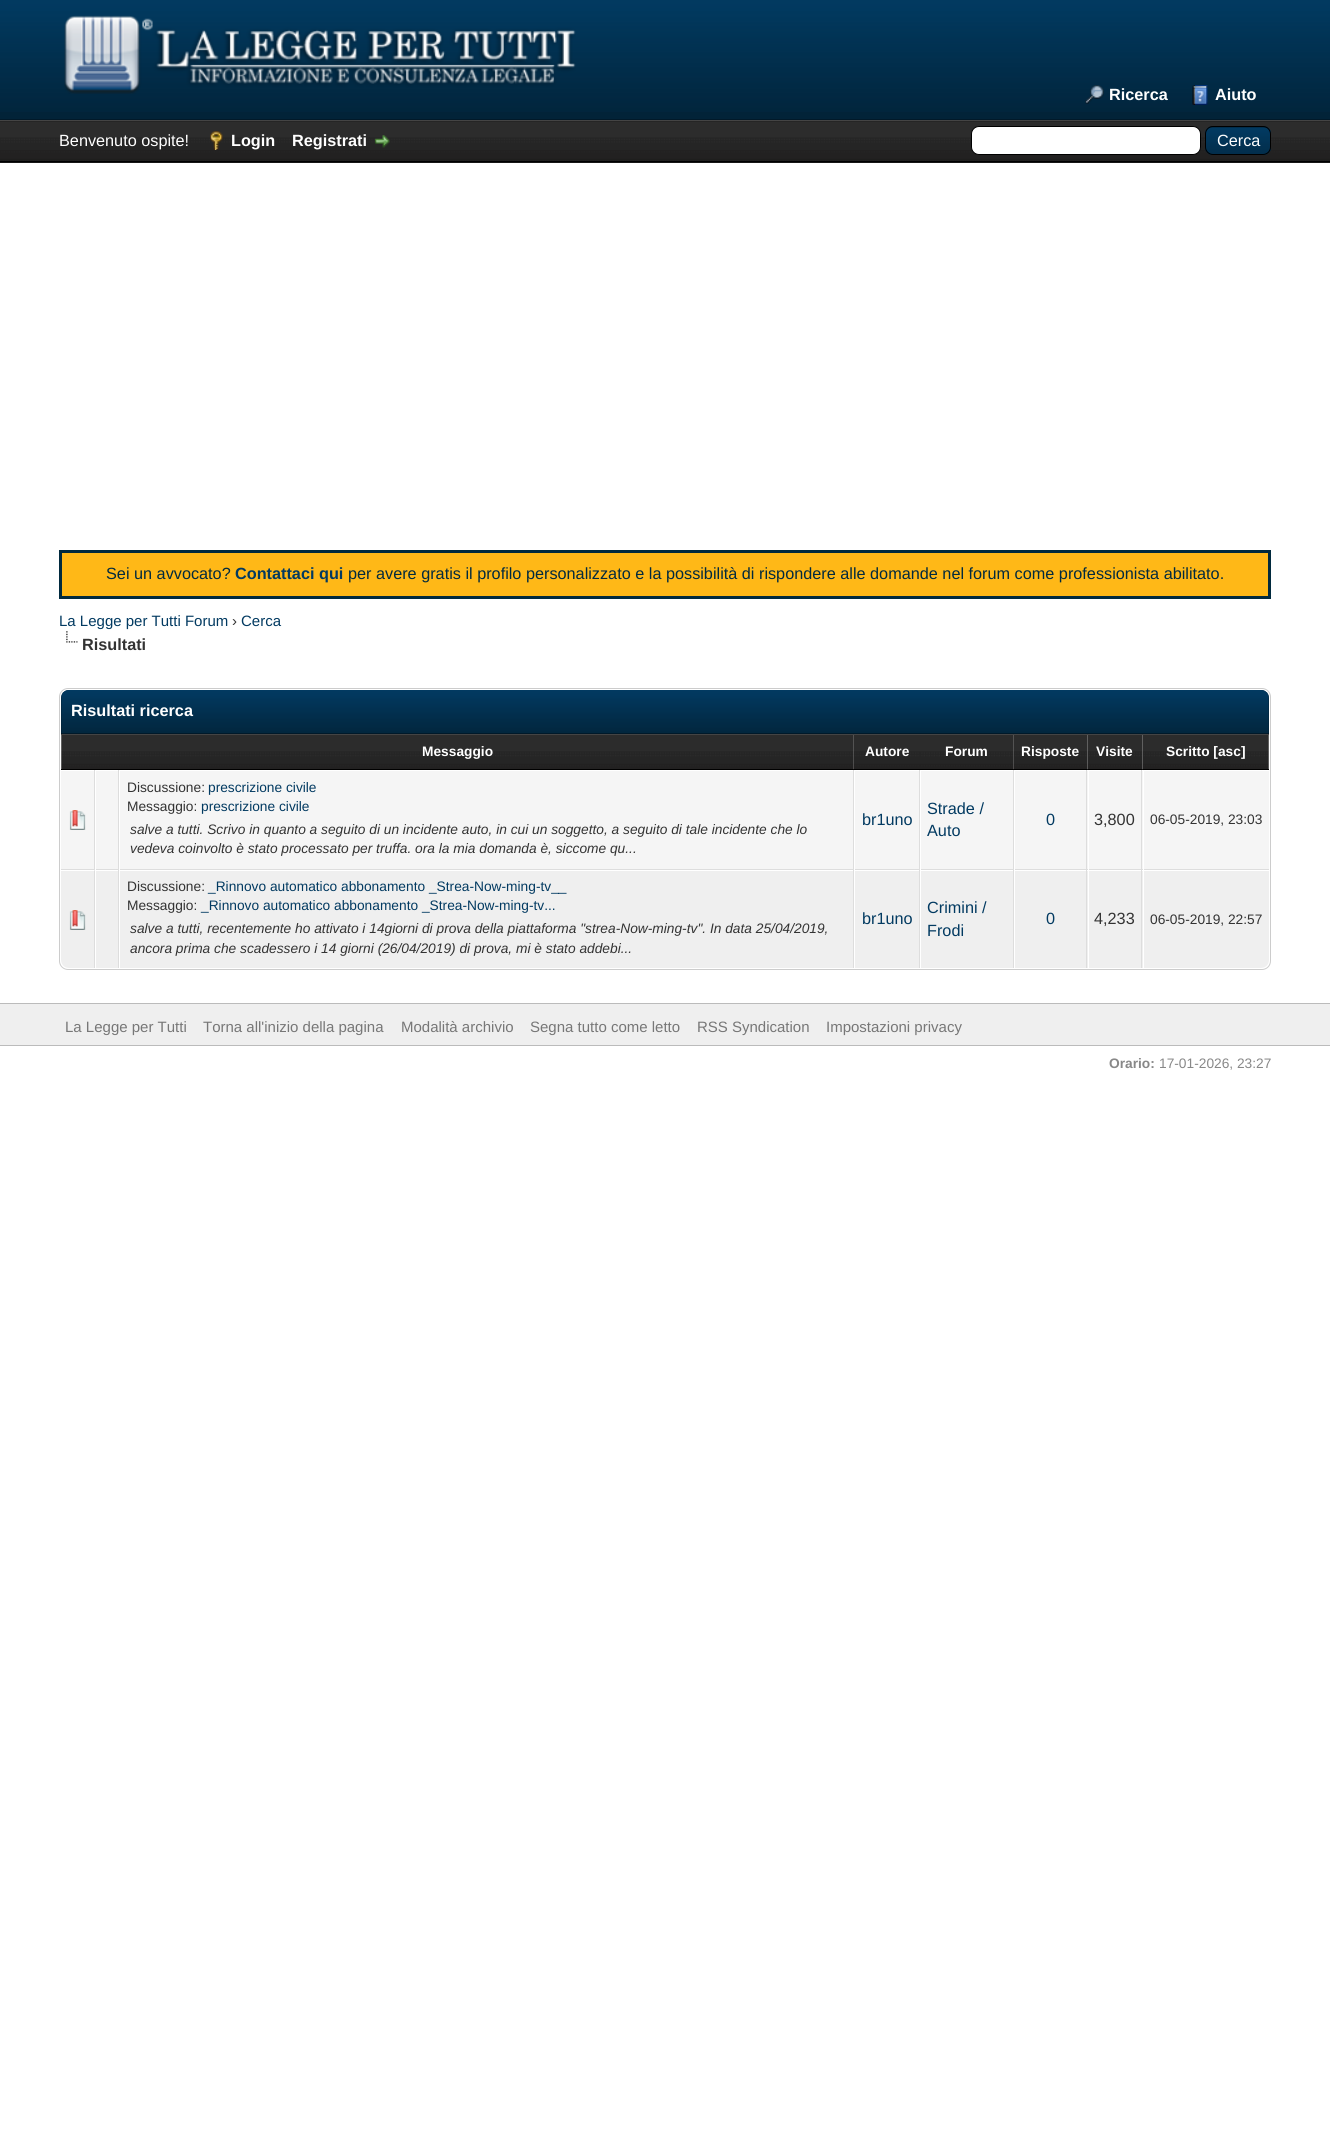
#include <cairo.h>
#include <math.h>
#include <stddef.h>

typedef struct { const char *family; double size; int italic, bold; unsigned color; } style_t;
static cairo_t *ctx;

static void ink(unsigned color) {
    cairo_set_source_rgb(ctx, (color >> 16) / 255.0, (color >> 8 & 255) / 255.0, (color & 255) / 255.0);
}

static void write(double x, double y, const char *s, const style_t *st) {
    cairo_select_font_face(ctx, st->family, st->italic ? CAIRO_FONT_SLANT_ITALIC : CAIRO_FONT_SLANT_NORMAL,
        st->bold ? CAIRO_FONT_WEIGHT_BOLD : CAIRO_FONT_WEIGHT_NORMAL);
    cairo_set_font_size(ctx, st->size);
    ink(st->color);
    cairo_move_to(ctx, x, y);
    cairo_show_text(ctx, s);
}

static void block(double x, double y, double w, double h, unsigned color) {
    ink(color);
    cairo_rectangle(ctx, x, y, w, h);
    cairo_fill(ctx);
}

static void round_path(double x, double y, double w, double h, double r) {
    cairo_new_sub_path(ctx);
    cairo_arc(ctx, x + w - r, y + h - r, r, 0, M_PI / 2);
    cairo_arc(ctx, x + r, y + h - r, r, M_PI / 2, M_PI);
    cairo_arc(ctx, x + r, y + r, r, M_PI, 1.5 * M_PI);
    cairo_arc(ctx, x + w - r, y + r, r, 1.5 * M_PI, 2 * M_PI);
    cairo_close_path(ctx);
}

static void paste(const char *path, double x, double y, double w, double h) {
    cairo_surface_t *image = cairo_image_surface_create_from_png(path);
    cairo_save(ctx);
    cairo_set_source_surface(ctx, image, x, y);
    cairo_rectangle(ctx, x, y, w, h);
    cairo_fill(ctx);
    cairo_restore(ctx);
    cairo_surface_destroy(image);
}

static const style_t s1 = {"Liberation Sans", 16.25, 0, 1, 0xffffff};
static const style_t s2 = {"Liberation Sans", 16.25, 0, 0, 0xffffff};
static const style_t s3 = {"Liberation Sans", 16.25, 0, 0, 0x012a3e};
static const style_t s4 = {"Liberation Sans", 16.25, 0, 1, 0x023a61};
static const style_t s5 = {"Liberation Sans", 15, 0, 0, 0x023a61};
static const style_t s6 = {"Liberation Sans", 15, 0, 0, 0x333333};
static const style_t s7 = {"Liberation Sans", 16.25, 0, 1, 0x333333};
static const style_t s8 = {"Liberation Sans", 13.75, 0, 1, 0xffffff};
static const style_t s9 = {"Liberation Sans", 13.75, 0, 0, 0x333333};
static const style_t s10 = {"Liberation Sans", 13.75, 0, 0, 0x023a61};
static const style_t s11 = {"Liberation Sans", 13.75, 1, 0, 0x333333};
static const style_t s12 = {"Liberation Sans", 16.25, 0, 0, 0x023a61};
static const style_t s13 = {"Liberation Sans", 16.25, 0, 0, 0x333333};
static const style_t s14 = {"Liberation Sans", 15, 0, 0, 0x777777};
static const style_t s15 = {"Liberation Sans", 13.75, 0, 1, 0x888888};
static const style_t s16 = {"Liberation Sans", 13.75, 0, 0, 0x888888};

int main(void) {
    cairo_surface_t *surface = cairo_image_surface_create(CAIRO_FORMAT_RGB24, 1330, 2132);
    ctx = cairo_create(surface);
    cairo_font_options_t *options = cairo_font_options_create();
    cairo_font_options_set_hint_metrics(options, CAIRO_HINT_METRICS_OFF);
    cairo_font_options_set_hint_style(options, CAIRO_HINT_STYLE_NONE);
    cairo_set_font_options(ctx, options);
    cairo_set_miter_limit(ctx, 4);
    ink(0xffffff);
    cairo_paint(ctx);
    block(0, 112, 1330, 7, 0x022338);
    paste("pic1.png", 0, 0, 1330, 112);
    block(0, 119, 1330, 1, 0x011929);
    paste("pic2.png", 64, 15, 512, 79);
    paste("pic3.png", 1085, 85, 19, 19);
    write(1109, 100, "Ricerca", &s1);
    paste("pic4.png", 1192, 85, 16, 20);
    write(1215, 100, "Aiuto", &s1);
    block(0, 121, 1330, 42, 0x0f0f0f);
    paste("pic5.png", 0, 121, 1330, 42);
    block(0, 120, 1330, 1, 0x444444);
    block(0, 161, 1330, 1, 0x000000);
    write(59, 146, "Benvenuto ospite!", &s2);
    paste("pic6.png", 210, 131, 13, 19);
    write(231, 146, "Login", &s1);
    write(292, 146, "Registrati", &s1);
    paste("pic7.png", 374, 135, 16, 13);
    round_path(971.5, 126.5, 229, 28, 7.5);
    cairo_fill_preserve(ctx);
    ink(0x000000);
    cairo_set_line_width(ctx, 1);
    cairo_stroke(ctx);
    ink(0x022338);
    round_path(1205, 126, 66, 29, 8);
    cairo_fill(ctx);
    paste("pic8.png", 1205, 127, 66, 28);
    round_path(1205.5, 126.5, 65, 28, 7.5);
    ink(0x000000);
    cairo_stroke(ctx);
    write(1217, 146, "Cerca", &s2);
    ink(0xffb817);
    cairo_rectangle(ctx, 60.5, 551.5, 1209, 46);
    cairo_fill_preserve(ctx);
    ink(0x012a3e);
    cairo_set_line_width(ctx, 3);
    cairo_stroke(ctx);
    write(106, 579, "Sei un avvocato?", &s3);
    write(235, 579, "Contattaci qui", &s4);
    write(348, 579, "per avere gratis il profilo personalizzato e la possibilità di rispondere alle domande nel forum come professionista abilitato.", &s3);
    write(59, 626, "La Legge per Tutti Forum", &s5);
    write(232, 626, "›", &s6);
    write(241, 626, "Cerca", &s5);
    paste("pic9.png", 66, 631, 12, 12);
    write(82, 650, "Risultati", &s7);
    round_path(59.5, 688.5, 1211, 281, 8.5);
    ink(0xcccccc);
    cairo_set_line_width(ctx, 1);
    cairo_stroke(ctx);
    ink(0x022338);
    cairo_new_path(ctx);
    cairo_move_to(ctx, 69, 690);
    cairo_line_to(ctx, 1261, 690);
    cairo_curve_to(ctx, 1265.5, 690, 1269, 693.5, 1269, 698);
    cairo_line_to(ctx, 1269, 734);
    cairo_line_to(ctx, 61, 734);
    cairo_line_to(ctx, 61, 698);
    cairo_curve_to(ctx, 61, 693.5, 64.5, 690, 69, 690);
    cairo_close_path(ctx);
    cairo_fill(ctx);
    paste("pic10.png", 61, 690, 1208, 43);
    block(61, 733, 1208, 1, 0x011929);
    write(71, 716, "Risultati ricerca", &s1);
    paste("pic11.png", 61, 735, 793, 34);
    block(61, 734, 1208, 1, 0x444444);
    block(61, 769, 793, 1, 0x000000);
    write(422, 756, "Messaggio", &s8);
    paste("pic12.png", 853, 735, 67, 35);
    block(854, 769, 160, 1, 0x000000);
    write(865, 756, "Autore", &s8);
    paste("pic13.png", 920, 735, 94, 34);
    write(945, 756, "Forum", &s8);
    paste("pic14.png", 1013, 735, 75, 35);
    block(1014, 769, 74, 1, 0x000000);
    write(1021, 756, "Risposte", &s8);
    paste("pic15.png", 1087, 735, 56, 35);
    block(1088, 769, 55, 1, 0x000000);
    write(1096, 756, "Visite", &s8);
    paste("pic16.png", 1142, 735, 127, 35);
    block(1143, 769, 126, 1, 0x000000);
    write(1166, 756, "Scritto [asc]", &s8);
    block(61, 771, 33, 98, 0xf5f5f5);
    block(94, 770, 1, 100, 0xdddddd);
    block(61, 869, 34, 1, 0xdddddd);
    paste("pic17.png", 69, 810, 17, 20);
    block(96, 771, 22, 98, 0xf5f5f5);
    block(118, 770, 1, 198, 0xdddddd);
    block(95, 869, 24, 1, 0xdddddd);
    block(95, 869, 1, 1, 0xffffff);
    block(120, 771, 733, 98, 0xf5f5f5);
    block(853, 770, 1, 198, 0xdddddd);
    block(119, 869, 735, 1, 0xdddddd);
    block(119, 869, 1, 1, 0xffffff);
    write(127, 792, "Discussione:", &s9);
    write(208, 792, "prescrizione civile", &s10);
    write(127, 811, "Messaggio:", &s9);
    write(201, 811, "prescrizione civile", &s10);
    write(130, 834, "salve a tutti. Scrivo in quanto a seguito di un incidente auto, in cui un soggetto, a seguito di tale incidente che lo", &s11);
    write(130, 853, "vedeva coinvolto è stato processato per truffa. ora la mia domanda è, siccome qu...", &s11);
    block(855, 771, 64, 98, 0xf5f5f5);
    block(919, 770, 1, 198, 0xdddddd);
    block(854, 869, 66, 1, 0xdddddd);
    block(854, 869, 1, 1, 0xffffff);
    write(862, 825, "br1uno", &s12);
    block(921, 771, 92, 98, 0xf5f5f5);
    block(1013, 770, 1, 198, 0xdddddd);
    block(920, 869, 94, 1, 0xdddddd);
    block(920, 869, 1, 1, 0xffffff);
    write(927, 814, "Strade /", &s12);
    write(927, 836, "Auto", &s12);
    block(1015, 771, 73, 98, 0xf5f5f5);
    block(1086, 770, 1, 100, 0xdddddd);
    block(1014, 869, 74, 1, 0xdddddd);
    block(1014, 869, 1, 1, 0xffffff);
    write(1046, 825, "0", &s12);
    block(1089, 771, 54, 98, 0xf5f5f5);
    block(1141, 770, 1, 100, 0xdddddd);
    block(1088, 869, 181, 1, 0xdddddd);
    block(1088, 869, 1, 1, 0xffffff);
    write(1094, 825, "3,800", &s13);
    block(1144, 771, 125, 98, 0xf5f5f5);
    block(1143, 869, 1, 1, 0xffffff);
    write(1150, 824, "06-05-2019, 23:03", &s9);
    ink(0xefefef);
    cairo_new_path(ctx);
    cairo_move_to(ctx, 61, 870);
    cairo_line_to(ctx, 95, 870);
    cairo_line_to(ctx, 95, 968);
    cairo_line_to(ctx, 69, 968);
    cairo_curve_to(ctx, 64.5, 968, 61, 964.5, 61, 960);
    cairo_close_path(ctx);
    cairo_fill(ctx);
    ink(0xffffff);
    cairo_new_path(ctx);
    cairo_move_to(ctx, 61, 870);
    cairo_line_to(ctx, 95, 870);
    cairo_line_to(ctx, 94, 871);
    cairo_line_to(ctx, 61, 871);
    cairo_close_path(ctx);
    cairo_fill(ctx);
    ink(0xdddddd);
    cairo_new_path(ctx);
    cairo_move_to(ctx, 95, 870);
    cairo_line_to(ctx, 95, 968);
    cairo_line_to(ctx, 94, 968);
    cairo_line_to(ctx, 94, 871);
    cairo_close_path(ctx);
    cairo_fill(ctx);
    paste("pic18.png", 69, 910, 17, 20);
    block(96, 871, 22, 97, 0xefefef);
    block(120, 871, 733, 97, 0xefefef);
    write(127, 891, "Discussione:", &s9);
    write(208, 891, "_Rinnovo automatico abbonamento _Strea-Now-ming-tv__", &s10);
    write(127, 910, "Messaggio:", &s9);
    write(201, 910, "_Rinnovo automatico abbonamento _Strea-Now-ming-tv...", &s10);
    write(130, 933, "salve a tutti, recentemente ho attivato i 14giorni di prova della piattaforma \"strea-Now-ming-tv\". In data 25/04/2019,", &s11);
    write(130, 953, "ancora prima che scadessero i 14 giorni (26/04/2019) di prova, mi è stato addebi...", &s11);
    block(855, 871, 64, 97, 0xefefef);
    write(862, 924, "br1uno", &s12);
    block(921, 871, 92, 97, 0xefefef);
    write(927, 913, "Crimini /", &s12);
    write(927, 936, "Frodi", &s12);
    block(1015, 871, 73, 97, 0xefefef);
    block(1086, 870, 1, 98, 0xdddddd);
    write(1046, 924, "0", &s12);
    block(1089, 871, 54, 97, 0xefefef);
    block(1141, 870, 1, 98, 0xdddddd);
    write(1094, 924, "4,233", &s13);
    ink(0xefefef);
    cairo_new_path(ctx);
    cairo_move_to(ctx, 1143, 870);
    cairo_line_to(ctx, 1269, 870);
    cairo_line_to(ctx, 1269, 960);
    cairo_curve_to(ctx, 1269, 964.5, 1265.5, 968, 1261, 968);
    cairo_line_to(ctx, 1143, 968);
    cairo_close_path(ctx);
    cairo_fill(ctx);
    block(1143, 870, 126, 1, 0xffffff);
    block(1143, 870, 1, 98, 0xffffff);
    write(1150, 924, "06-05-2019, 22:57", &s9);
    block(0, 1004, 1330, 41, 0xefefef);
    block(0, 1003, 1330, 1, 0xbbbbbb);
    block(0, 1045, 1330, 1, 0xbbbbbb);
    write(65, 1032, "La Legge per Tutti", &s14);
    write(203, 1032, "Torna all'inizio della pagina", &s14);
    write(401, 1032, "Modalità archivio", &s14);
    write(530, 1032, "Segna tutto come letto", &s14);
    write(697, 1032, "RSS Syndication", &s14);
    write(826, 1032, "Impostazioni privacy", &s14);
    write(1109, 1068, "Orario:", &s15);
    write(1159, 1068, "17-01-2026, 23:27", &s16);
    cairo_surface_write_to_png(surface, "screenshot.png");
    cairo_font_options_destroy(options);
    cairo_destroy(ctx);
    cairo_surface_destroy(surface);
    return 0;
}
